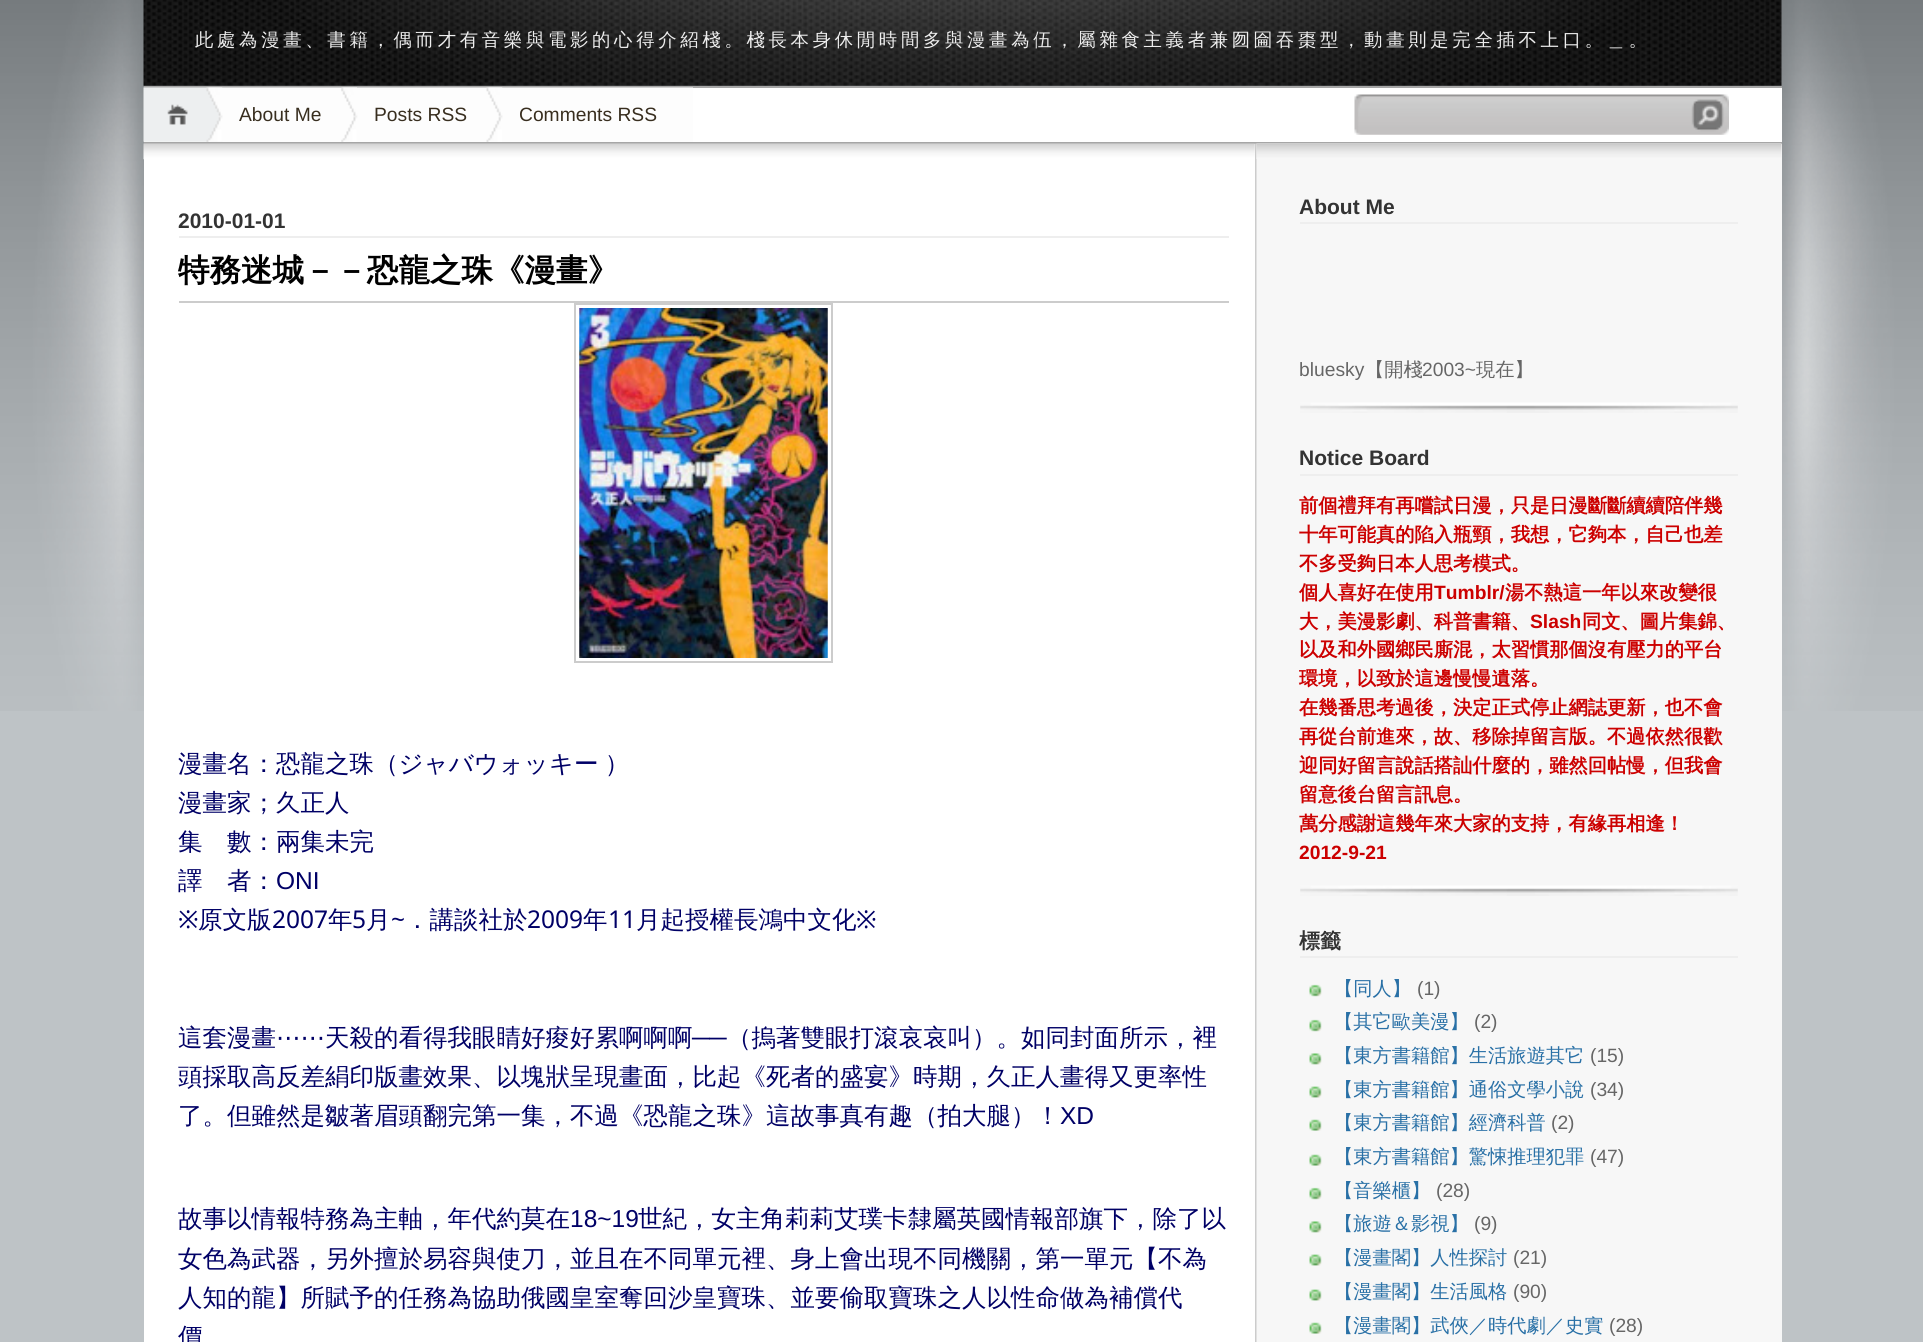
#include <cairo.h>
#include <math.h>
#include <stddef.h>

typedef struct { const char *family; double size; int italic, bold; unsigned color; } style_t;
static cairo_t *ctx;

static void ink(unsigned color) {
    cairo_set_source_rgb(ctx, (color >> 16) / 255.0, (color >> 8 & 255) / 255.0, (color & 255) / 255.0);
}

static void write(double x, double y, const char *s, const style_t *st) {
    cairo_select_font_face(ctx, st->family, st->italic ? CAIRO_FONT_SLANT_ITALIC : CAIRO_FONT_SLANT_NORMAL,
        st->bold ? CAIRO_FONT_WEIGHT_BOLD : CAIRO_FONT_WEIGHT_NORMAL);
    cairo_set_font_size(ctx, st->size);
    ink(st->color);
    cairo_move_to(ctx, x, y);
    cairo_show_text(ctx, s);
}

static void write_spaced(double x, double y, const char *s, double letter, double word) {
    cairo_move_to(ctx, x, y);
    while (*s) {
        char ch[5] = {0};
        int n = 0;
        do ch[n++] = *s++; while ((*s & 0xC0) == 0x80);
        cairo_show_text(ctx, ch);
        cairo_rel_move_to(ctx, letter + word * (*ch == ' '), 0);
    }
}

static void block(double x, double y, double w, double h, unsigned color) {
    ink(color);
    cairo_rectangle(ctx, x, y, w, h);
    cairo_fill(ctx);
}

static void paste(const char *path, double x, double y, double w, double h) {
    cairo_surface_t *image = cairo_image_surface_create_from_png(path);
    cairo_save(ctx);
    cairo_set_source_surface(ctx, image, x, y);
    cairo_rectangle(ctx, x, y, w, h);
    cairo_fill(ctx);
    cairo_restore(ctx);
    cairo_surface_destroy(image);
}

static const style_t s1 = {"Liberation Sans", 19.25, 0, 0, 0x382e1f};
static const style_t s2 = {"Liberation Sans", 21, 0, 1, 0x333333};
static const style_t s3 = {"WenQuanYi Zen Hei", 31.5, 0, 1, 0x000000};
static const style_t s4 = {"WenQuanYi Zen Hei Medium", 24.5, 0, 0, 0x000066};
static const style_t s5 = {"Liberation Sans", 24.5, 0, 0, 0x000066};
static const style_t s6 = {"Noto Sans", 24.5, 0, 0, 0x000066};
static const style_t s7 = {"DejaVu Sans", 24.5, 0, 0, 0x000066};
static const style_t s8 = {"Liberation Sans", 19.25, 0, 0, 0x666666};
static const style_t s9 = {"WenQuanYi Zen Hei Medium", 19.25, 0, 0, 0x666666};
static const style_t s10 = {"WenQuanYi Zen Hei", 19.25, 0, 1, 0xcc0000};
static const style_t s11 = {"Liberation Sans", 19.25, 0, 1, 0xcc0000};
static const style_t s12 = {"WenQuanYi Zen Hei", 21, 0, 1, 0x333333};
static const style_t s13 = {"WenQuanYi Zen Hei Medium", 19.25, 0, 0, 0x2970a6};

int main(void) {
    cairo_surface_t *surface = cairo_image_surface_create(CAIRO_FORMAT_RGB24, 1923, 1342);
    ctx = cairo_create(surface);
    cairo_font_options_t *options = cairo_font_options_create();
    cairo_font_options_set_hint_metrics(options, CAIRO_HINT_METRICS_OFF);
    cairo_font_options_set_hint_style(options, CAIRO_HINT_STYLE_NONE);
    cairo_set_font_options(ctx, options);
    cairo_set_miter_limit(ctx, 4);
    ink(0xbec3c6);
    cairo_paint(ctx);
    paste("pic1.png", 144, 85, 1636, 1);
    paste("pic2.png", 0, 0, 1923, 711);
    paste("pic3.png", 143, 0, 1639, 86);
    block(144, 86, 1638, 2, 0xa6a6a6);
    cairo_select_font_face(ctx, "WenQuanYi Zen Hei Medium", CAIRO_FONT_SLANT_NORMAL, CAIRO_FONT_WEIGHT_NORMAL);
    cairo_set_font_size(ctx, 18.38);
    ink(0xeeeeee);
    write_spaced(195, 46, "此處為漫畫、書籍，偶而才有音樂與電影的心得介紹棧。棧長本身休閒時間多與漫畫為伍，屬雜食主義者兼囫圇吞棗型，動畫則是完全插不上口。＿。", 3.68, 0);
    block(144, 88, 1638, 54, 0xffffff);
    block(144, 142, 1638, 2, 0xa6a6a6);
    paste("pic4.png", 143, 87, 80, 55);
    paste("pic5.png", 206, 87, 151, 55);
    write(239, 121, "About Me", &s1);
    paste("pic6.png", 341, 87, 162, 55);
    write(374, 121, "Posts RSS", &s1);
    paste("pic7.png", 486, 87, 207, 55);
    write(519, 121, "Comments RSS", &s1);
    paste("pic8.png", 1354, 94, 375, 41);
    paste("pic9.png", 1254, 143, 528, 1199);
    block(144, 144, 1111, 1198, 0xffffff);
    paste("pic10.png", 143, 143, 1112, 17);
    block(179, 236, 1050, 2, 0xeeeeee);
    write(178, 228, "2010-01-01", &s2);
    block(179, 301, 1050, 2, 0xcccccc);
    write(178, 281, "特務迷城－－恐龍之珠《漫畫》", &s3);
    cairo_rectangle(ctx, 575, 304, 257, 358);
    ink(0xcccccc);
    cairo_stroke(ctx);
    paste("pic11.png", 579, 308, 249, 350);
    cairo_select_font_face(ctx, "WenQuanYi Zen Hei Medium", CAIRO_FONT_SLANT_NORMAL, CAIRO_FONT_WEIGHT_NORMAL);
    cairo_set_font_size(ctx, 24.5);
    ink(0x000066);
    write_spaced(178, 772, "漫畫名：恐龍之珠（ジャバウォッキー ）", 0, -1);
    write(178, 811, "漫畫家；久正人", &s4);
    write(178, 850, "集　數：兩集未完", &s4);
    write(178, 889, "譯　者：", &s4);
    write(276, 889, "ONI", &s5);
    write(178, 928, "※", &s6);
    write(198, 928, "原文版", &s4);
    write(272, 928, "2007", &s6);
    write(328, 928, "年", &s4);
    write(352, 928, "5", &s6);
    write(366, 928, "月", &s4);
    write(391, 928, "~", &s6);
    write(405, 928, "．講談社於", &s4);
    write(527, 928, "2009", &s6);
    write(583, 928, "年", &s4);
    write(608, 928, "11", &s6);
    write(636, 928, "月起授權長鴻中文化", &s4);
    write(856, 928, "※", &s6);
    write(178, 1046, "這套漫畫", &s4);
    write(276, 1046, "⋯⋯", &s7);
    write(325, 1046, "天殺的看得我眼睛好痠好累啊啊啊", &s4);
    write(692, 1046, "──", &s5);
    write(727, 1046, "（摀著雙眼打滾哀哀叫）。如同封面所示，裡", &s4);
    write(178, 1085, "頭採取高反差絹印版畫效果、以塊狀呈現畫面，比起《死者的盛宴》時期，久正人畫得又更率性", &s4);
    write(178, 1124, "了。但雖然是皺著眉頭翻完第一集，不過《恐龍之珠》這故事真有趣（拍大腿）！", &s4);
    write(1060, 1124, "XD", &s5);
    write(178, 1227, "故事以情報特務為主軸，年代約莫在", &s4);
    write(570, 1227, "18~19", &s5);
    write(638, 1227, "世紀，女主角莉莉艾璞卡隸屬英國情報部旗下，除了以", &s4);
    write(178, 1267, "女色為武器，另外擅於易容與使刀，並且在不同單元裡、身上會出現不同機關，第一單元【不為", &s4);
    write(178, 1306, "人知的龍】所賦予的任務為協助俄國皇室奪回沙皇寶珠、並要偷取寶珠之人以性命做為補償代", &s4);
    write(178, 1345, "價", &s4);
    block(1781, 144, 1, 1198, 0xf7f7f7);
    paste("pic12.png", 1256, 143, 526, 16);
    paste("pic13.png", 1300, 402, 438, 11);
    block(1300, 222, 438, 2, 0xeeeeee);
    write(1299, 214, "About Me", &s2);
    write(1299, 376, "bluesky", &s8);
    write(1365, 376, "【開棧", &s9);
    write(1422, 376, "2003~", &s8);
    write(1476, 376, "現在】", &s9);
    paste("pic13.png", 1300, 885, 438, 11);
    block(1300, 474, 438, 2, 0xeeeeee);
    write(1299, 465, "Notice Board", &s2);
    write(1299, 512, "前個禮拜有再嚐試日漫，只是日漫斷斷續續陪伴幾", &s10);
    write(1299, 541, "十年可能真的陷入瓶頸，我想，它夠本，自己也差", &s10);
    write(1299, 570, "不多受夠日本人思考模式。", &s10);
    write(1299, 599, "個人喜好在使用", &s10);
    write(1434, 599, "Tumblr/", &s11);
    write(1505, 599, "湯不熱這一年以來改變很", &s10);
    write(1299, 628, "大，美漫影劇、科普書籍、", &s10);
    write(1530, 628, "Slash", &s11);
    write(1582, 628, "同文、圖片集錦、", &s10);
    write(1299, 656, "以及和外國鄉民廝混，太習慣那個沒有壓力的平台", &s10);
    write(1299, 685, "環境，以致於這邊慢慢遺落。", &s10);
    write(1299, 714, "在幾番思考過後，決定正式停止網誌更新，也不會", &s10);
    write(1299, 743, "再從台前進來，故、移除掉留言版。不過依然很歡", &s10);
    write(1299, 772, "迎同好留言說話搭訕什麼的，雖然回帖慢，但我會", &s10);
    write(1299, 801, "留意後台留言訊息。", &s10);
    write(1299, 830, "萬分感謝這幾年來大家的支持，有緣再相逢！", &s10);
    write(1299, 859, "2012-9-21", &s11);
    block(1300, 956, 438, 2, 0xeeeeee);
    write(1299, 948, "標籤", &s12);
    paste("pic14.png", 1309, 984, 13, 13);
    write(1334, 995, "【同人】", &s13);
    write(1417, 995, "(1)", &s8);
    paste("pic14.png", 1309, 1019, 13, 13);
    write(1334, 1028, "【其它歐美漫】", &s13);
    write(1474, 1028, "(2)", &s8);
    paste("pic15.png", 1309, 1053, 13, 12);
    write(1334, 1062, "【東方書籍館】生活旅遊其它", &s13);
    write(1590, 1062, "(15)", &s8);
    paste("pic16.png", 1309, 1086, 13, 12);
    write(1334, 1096, "【東方書籍館】通俗文學小說", &s13);
    write(1590, 1096, "(34)", &s8);
    paste("pic17.png", 1309, 1119, 13, 12);
    write(1334, 1129, "【東方書籍館】經濟科普", &s13);
    write(1551, 1129, "(2)", &s8);
    paste("pic17.png", 1309, 1154, 13, 12);
    write(1334, 1163, "【東方書籍館】驚悚推理犯罪", &s13);
    write(1590, 1163, "(47)", &s8);
    paste("pic14.png", 1309, 1187, 13, 13);
    write(1334, 1197, "【音樂櫃】", &s13);
    write(1436, 1197, "(28)", &s8);
    paste("pic15.png", 1309, 1221, 13, 12);
    write(1334, 1230, "【旅遊＆影視】", &s13);
    write(1474, 1230, "(9)", &s8);
    paste("pic16.png", 1309, 1254, 13, 12);
    write(1334, 1264, "【漫畫閣】人性探討", &s13);
    write(1513, 1264, "(21)", &s8);
    paste("pic16.png", 1309, 1289, 13, 12);
    write(1334, 1298, "【漫畫閣】生活風格", &s13);
    write(1513, 1298, "(90)", &s8);
    paste("pic17.png", 1309, 1322, 13, 12);
    write(1334, 1332, "【漫畫閣】武俠／時代劇／史實", &s13);
    write(1609, 1332, "(28)", &s8);
    cairo_surface_write_to_png(surface, "screenshot.png");
    cairo_font_options_destroy(options);
    cairo_destroy(ctx);
    cairo_surface_destroy(surface);
    return 0;
}
